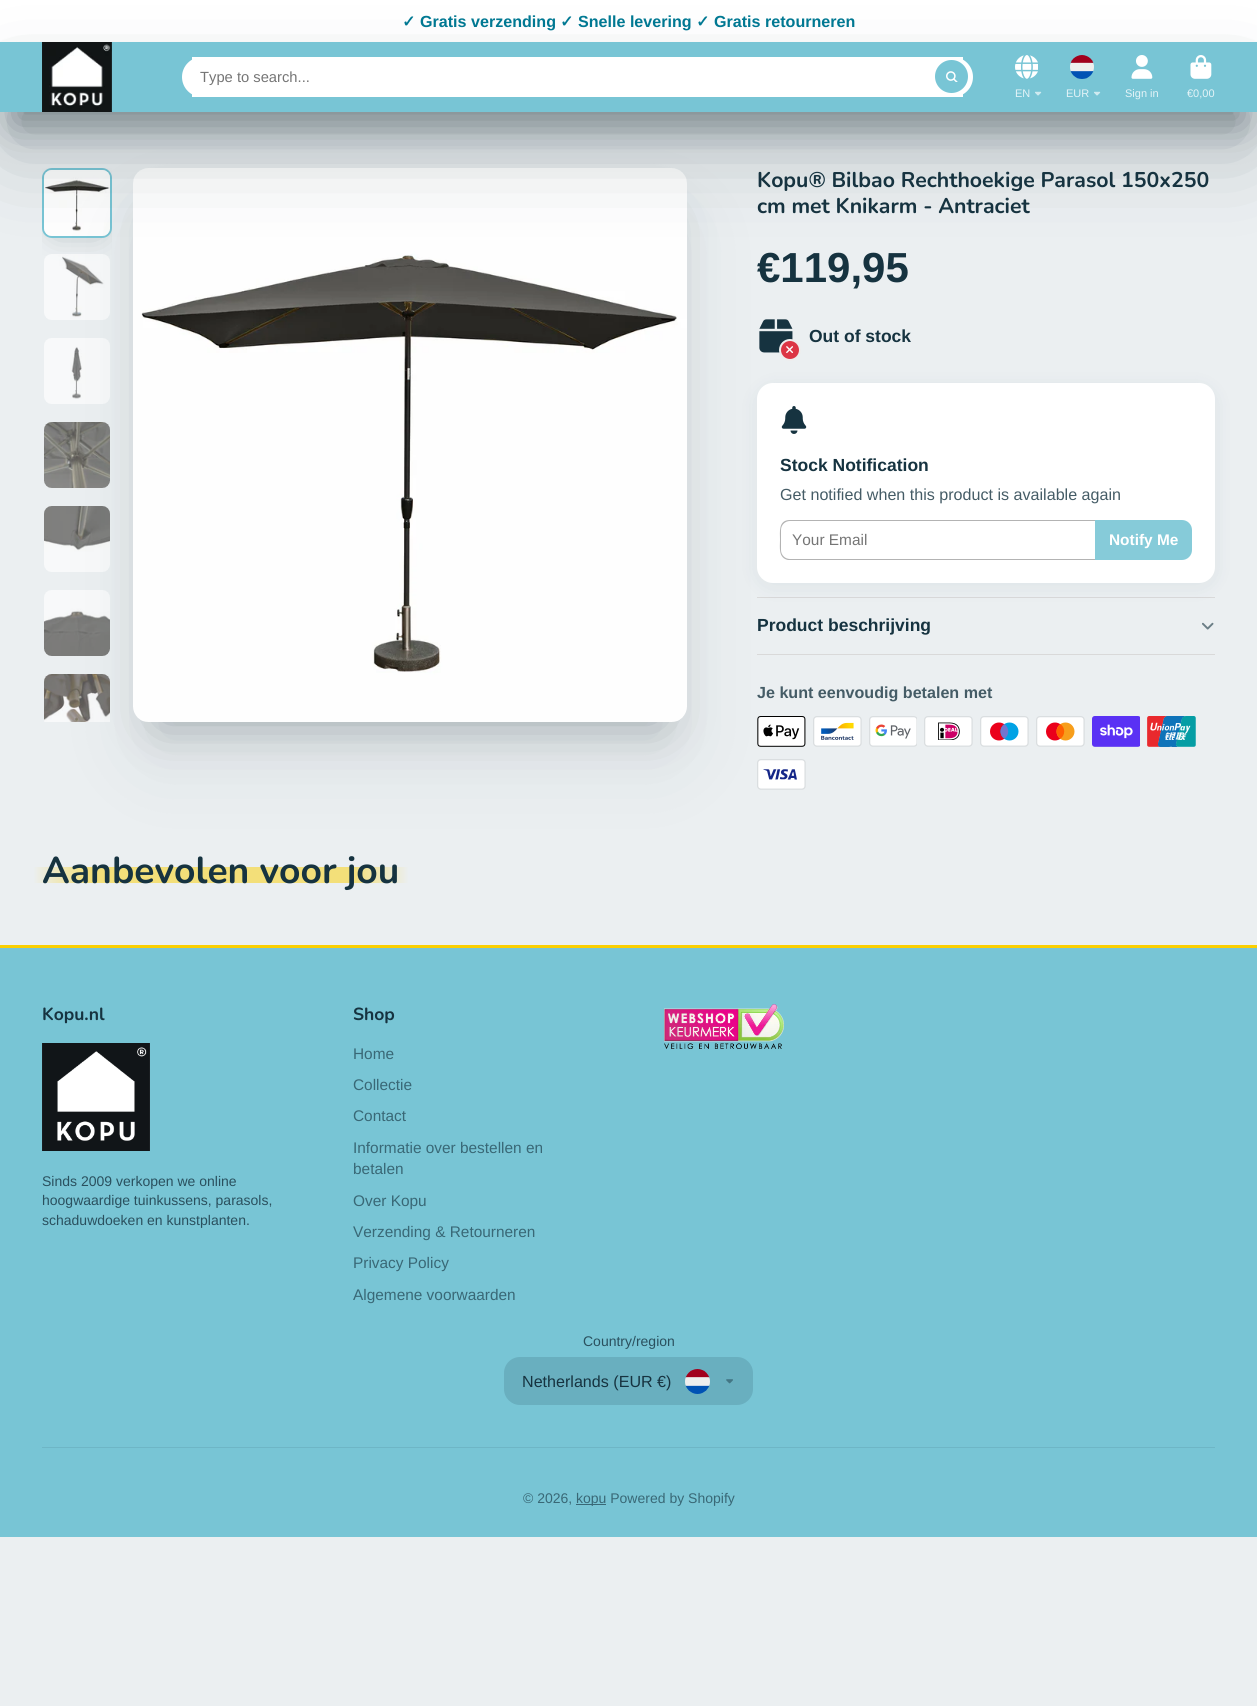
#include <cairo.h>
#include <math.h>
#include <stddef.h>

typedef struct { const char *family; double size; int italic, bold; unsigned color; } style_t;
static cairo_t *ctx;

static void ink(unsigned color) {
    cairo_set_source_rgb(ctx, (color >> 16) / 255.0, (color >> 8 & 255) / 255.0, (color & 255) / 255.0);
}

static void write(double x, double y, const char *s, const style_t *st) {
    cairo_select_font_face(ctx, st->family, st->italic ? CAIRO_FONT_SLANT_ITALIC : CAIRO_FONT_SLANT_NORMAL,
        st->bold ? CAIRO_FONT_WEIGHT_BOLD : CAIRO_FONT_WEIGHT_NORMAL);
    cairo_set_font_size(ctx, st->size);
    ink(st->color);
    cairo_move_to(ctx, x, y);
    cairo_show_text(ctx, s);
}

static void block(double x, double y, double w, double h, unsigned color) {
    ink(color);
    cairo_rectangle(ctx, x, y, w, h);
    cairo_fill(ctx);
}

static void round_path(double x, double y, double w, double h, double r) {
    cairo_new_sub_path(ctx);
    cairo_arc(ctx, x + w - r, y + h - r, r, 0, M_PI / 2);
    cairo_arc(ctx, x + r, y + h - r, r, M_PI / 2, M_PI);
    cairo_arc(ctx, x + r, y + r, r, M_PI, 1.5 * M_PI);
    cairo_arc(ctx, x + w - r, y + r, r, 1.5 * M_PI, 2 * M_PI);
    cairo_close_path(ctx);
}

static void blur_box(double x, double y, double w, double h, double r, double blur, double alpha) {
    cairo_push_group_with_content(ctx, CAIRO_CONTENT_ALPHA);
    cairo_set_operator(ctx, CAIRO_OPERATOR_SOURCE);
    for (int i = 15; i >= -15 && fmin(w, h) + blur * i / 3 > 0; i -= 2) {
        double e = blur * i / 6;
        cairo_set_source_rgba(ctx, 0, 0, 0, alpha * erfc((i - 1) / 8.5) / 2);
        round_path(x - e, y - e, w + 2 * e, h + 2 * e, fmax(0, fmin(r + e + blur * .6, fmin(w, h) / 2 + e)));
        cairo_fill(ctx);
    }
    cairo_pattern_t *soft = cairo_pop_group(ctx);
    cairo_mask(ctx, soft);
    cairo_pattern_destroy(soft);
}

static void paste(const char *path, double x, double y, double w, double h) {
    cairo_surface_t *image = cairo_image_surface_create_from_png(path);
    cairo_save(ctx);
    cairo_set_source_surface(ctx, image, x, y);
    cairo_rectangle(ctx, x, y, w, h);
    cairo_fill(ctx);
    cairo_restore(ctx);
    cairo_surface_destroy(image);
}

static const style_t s1 = {"DejaVu Sans", 16.1, 0, 1, 0x007993};
static const style_t s2 = {"Liberation Sans", 16.1, 0, 1, 0x007993};
static const style_t s3 = {"Liberation Sans", 14.75, 0, 0, 0x757575};
static const style_t s4 = {"Liberation Sans", 11, 0, 0, 0xe4f3f7};
static const style_t s5 = {"Nunito", 21.25, 0, 1, 0x163340};
static const style_t s6 = {"Liberation Sans", 42, 0, 1, 0x163340};
static const style_t s7 = {"Liberation Sans", 17.5, 0, 1, 0x163340};
static const style_t s8 = {"Liberation Sans", 16.1, 0, 0, 0x455c66};
static const style_t s9 = {"Liberation Sans", 15.4, 0, 0, 0x757575};
static const style_t s10 = {"Liberation Sans", 15.4, 0, 1, 0xffffff};
static const style_t s11 = {"Liberation Sans", 16.1, 0, 1, 0x455c66};
static const style_t s12 = {"Nunito", 37.25, 0, 1, 0x163340};
static const style_t s13 = {"Nunito", 17.5, 0, 1, 0x163340};
static const style_t s14 = {"Liberation Sans", 14, 0, 0, 0x2a505e};
static const style_t s15 = {"Liberation Sans", 15.4, 0, 0, 0x396876};
static const style_t s16 = {"Liberation Sans", 16.1, 0, 0, 0x163340};
static const style_t s17 = {"Liberation Sans", 14, 0, 0, 0x396876};

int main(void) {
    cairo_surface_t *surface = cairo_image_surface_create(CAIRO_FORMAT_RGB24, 1257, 1706);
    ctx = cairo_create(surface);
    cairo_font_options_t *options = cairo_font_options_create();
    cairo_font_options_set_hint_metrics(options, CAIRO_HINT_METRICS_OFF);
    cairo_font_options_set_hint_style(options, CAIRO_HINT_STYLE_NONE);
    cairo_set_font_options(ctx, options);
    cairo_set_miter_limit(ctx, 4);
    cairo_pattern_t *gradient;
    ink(0xebeff1);
    cairo_paint(ctx);
    block(0, 0, 1257, 42, 0xffffff);
    write(402, 27, "✓", &s1);
    write(420, 27, "Gratis verzending", &s2);
    write(560, 27, "✓", &s1);
    write(578, 27, "Snelle levering", &s2);
    write(696, 27, "✓", &s1);
    write(714, 27, "Gratis retourneren", &s2);
    cairo_save(ctx);
    cairo_rectangle(ctx, 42, 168, 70, 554);
    cairo_clip(ctx);
    ink(0x0f242d);
    blur_box(56, 189, 42, 42, 0, 14, 0.3);
    cairo_restore(ctx);
    round_path(43, 169, 68, 68, 9);
    ink(0x78c5d5);
    cairo_stroke(ctx);
    paste("pic9.png", 44, 170, 66, 66);
    paste("pic10.png", 44, 254, 66, 66);
    paste("pic11.png", 44, 338, 66, 66);
    paste("pic12.png", 44, 422, 66, 66);
    paste("pic13.png", 44, 506, 66, 66);
    paste("pic14.png", 44, 590, 66, 66);
    paste("pic15.png", 44, 674, 66, 48);
    ink(0x0f242d);
    blur_box(159, 221, 502, 501, 0, 26, 0.3);
    gradient = cairo_pattern_create_linear(33, 875, 409, 875);
    cairo_pattern_add_color_stop_rgba(gradient, 0, 0.922, 0.937, 0.945, 1);
    cairo_pattern_add_color_stop_rgba(gradient, 0.15, 0.953, 0.875, 0.475, 1);
    cairo_pattern_add_color_stop_rgba(gradient, 0.85, 0.953, 0.875, 0.475, 1);
    cairo_pattern_add_color_stop_rgba(gradient, 1, 0.922, 0.937, 0.945, 1);
    cairo_set_source(ctx, gradient);
    cairo_pattern_destroy(gradient);
    cairo_rectangle(ctx, 34, 867, 374, 16);
    cairo_fill(ctx);
    ink(0x0f242d);
    blur_box(151, 229, 519, 519, 0, 44, 0.1);
    paste("pic8.png", 133, 168, 554, 554);
    blur_box(14, 82, 1229, 42, 0, 19, 0.4);
    blur_box(14, 100, 1229, 42, 0, 44, 0.3);
    block(0, 42, 1257, 70, 0x78c5d5);
    paste("pic1.png", 42, 42, 70, 70);
    block(192, 57, 771, 40, 0xffffff);
    round_path(182, 57, 791, 40, 20);
    cairo_fill(ctx);
    write(200, 82, "Type to search...", &s3);
    ink(0x78c5d5);
    cairo_new_path(ctx);
    cairo_arc(ctx, 951.5, 76.5, 16.5, 0, 2 * M_PI);
    cairo_fill(ctx);
    paste("pic2.png", 946, 71, 12, 11);
    paste("pic3.png", 1015, 55, 23, 24);
    write(1015, 97, "EN", &s4);
    paste("pic4.png", 1035, 91, 7, 5);
    paste("pic5.png", 1070, 55, 24, 24);
    write(1066, 97, "EUR", &s4);
    paste("pic4.png", 1094, 91, 7, 5);
    paste("pic6.png", 1131, 55, 22, 24);
    write(1125, 97, "Sign in", &s4);
    paste("pic7.png", 1190, 55, 22, 24);
    write(1187, 97, "€0,00", &s4);
    write(757, 187, "Kopu® Bilbao Rechthoekige Parasol 150x250", &s5);
    write(757, 213, "cm met Knikarm - Antraciet", &s5);
    write(757, 282, "€119,95", &s6);
    paste("pic16.png", 759, 319, 34, 34);
    ink(0xdc3545);
    cairo_arc(ctx, 790, 350, 10, 0, 2 * M_PI);
    cairo_fill_preserve(ctx);
    ink(0xededed);
    cairo_stroke(ctx);
    paste("pic17.png", 786, 346, 7, 7);
    write(809, 342, "Out of stock", &s7);
    block(757, 597, 458, 1, 0xd9d9d9);
    ink(0x133f52);
    blur_box(757, 387, 458, 200, 16, 10, 0.07);
    ink(0xffffff);
    round_path(757, 383, 458, 200, 16);
    cairo_fill(ctx);
    paste("pic18.png", 781, 406, 26, 28);
    write(780, 471, "Stock Notification", &s7);
    write(780, 500, "Get notified when this product is available again", &s8);
    ink(0xb3b3b3);
    cairo_set_fill_rule(ctx, CAIRO_FILL_RULE_EVEN_ODD);
    cairo_new_path(ctx);
    cairo_move_to(ctx, 790, 520);
    cairo_line_to(ctx, 1095, 520);
    cairo_line_to(ctx, 1095, 560);
    cairo_line_to(ctx, 788, 560);
    cairo_curve_to(ctx, 778, 558, 780, 547, 780, 540);
    cairo_curve_to(ctx, 780, 532, 778, 520, 790, 520);
    cairo_close_path(ctx);
    cairo_move_to(ctx, 790, 521);
    cairo_line_to(ctx, 1095, 521);
    cairo_line_to(ctx, 1095, 559);
    cairo_line_to(ctx, 790, 559);
    cairo_curve_to(ctx, 785, 559, 781, 555, 781, 550);
    cairo_line_to(ctx, 781, 530);
    cairo_curve_to(ctx, 781, 525, 785, 521, 790, 521);
    cairo_close_path(ctx);
    cairo_fill(ctx);
    write(792, 545, "Your Email", &s9);
    ink(0x86cbd9);
    cairo_new_path(ctx);
    cairo_move_to(ctx, 1095, 520);
    cairo_line_to(ctx, 1182, 520);
    cairo_curve_to(ctx, 1187.5, 520, 1192, 524.5, 1192, 530);
    cairo_line_to(ctx, 1192, 550);
    cairo_curve_to(ctx, 1192, 555.5, 1187.5, 560, 1182, 560);
    cairo_line_to(ctx, 1095, 560);
    cairo_close_path(ctx);
    cairo_fill(ctx);
    write(1109, 545, "Notify Me", &s10);
    block(757, 654, 458, 1, 0xd9d9d9);
    write(757, 631, "Product beschrijving", &s7);
    paste("pic19.png", 1202, 622, 12, 8);
    write(757, 698, "Je kunt eenvoudig betalen met", &s11);
    paste("pic20.png", 757, 716, 49, 31);
    paste("pic21.png", 813, 716, 49, 31);
    paste("pic22.png", 869, 716, 48, 31);
    paste("pic23.png", 924, 716, 49, 31);
    paste("pic24.png", 980, 716, 49, 31);
    paste("pic25.png", 1036, 716, 49, 31);
    paste("pic26.png", 1092, 716, 48, 31);
    paste("pic27.png", 1147, 716, 49, 31);
    paste("pic28.png", 757, 759, 49, 31);
    write(42, 883, "Aanbevolen voor jou", &s12);
    block(0, 948, 1257, 589, 0x78c5d5);
    block(0, 945, 1257, 3, 0xfbcf00);
    write(42, 1020, "Kopu.nl", &s13);
    paste("pic29.png", 42, 1043, 108, 108);
    write(42, 1186, "Sinds 2009 verkopen we online", &s14);
    write(42, 1205, "hoogwaardige tuinkussens, parasols,", &s14);
    write(42, 1225, "schaduwdoeken en kunstplanten.", &s14);
    write(353, 1020, "Shop", &s13);
    write(353, 1059, "Home", &s15);
    write(353, 1090, "Collectie", &s15);
    write(353, 1121, "Contact", &s15);
    write(353, 1153, "Informatie over bestellen en", &s15);
    write(353, 1174, "betalen", &s15);
    write(353, 1206, "Over Kopu", &s15);
    write(353, 1237, "Verzending & Retourneren", &s15);
    write(353, 1268, "Privacy Policy", &s15);
    write(353, 1300, "Algemene voorwaarden", &s15);
    paste("pic30.png", 664, 1004, 120, 45);
    write(583, 1346, "Country/region", &s14);
    ink(0x69afbf);
    round_path(504, 1357, 249, 48, 16);
    cairo_fill(ctx);
    write(522, 1387, "Netherlands (EUR €)", &s16);
    paste("pic31.png", 685, 1369, 25, 25);
    paste("pic32.png", 726, 1379, 7, 5);
    block(42, 1447, 1173, 1, 0x6eb6c6);
    write(523, 1503, "© 2026,", &s17);
    block(576, 1504, 30, 1, 0x396876);
    write(576, 1503, "kopu Powered by Shopify", &s17);
    cairo_surface_write_to_png(surface, "screenshot.png");
    cairo_font_options_destroy(options);
    cairo_destroy(ctx);
    cairo_surface_destroy(surface);
    return 0;
}
